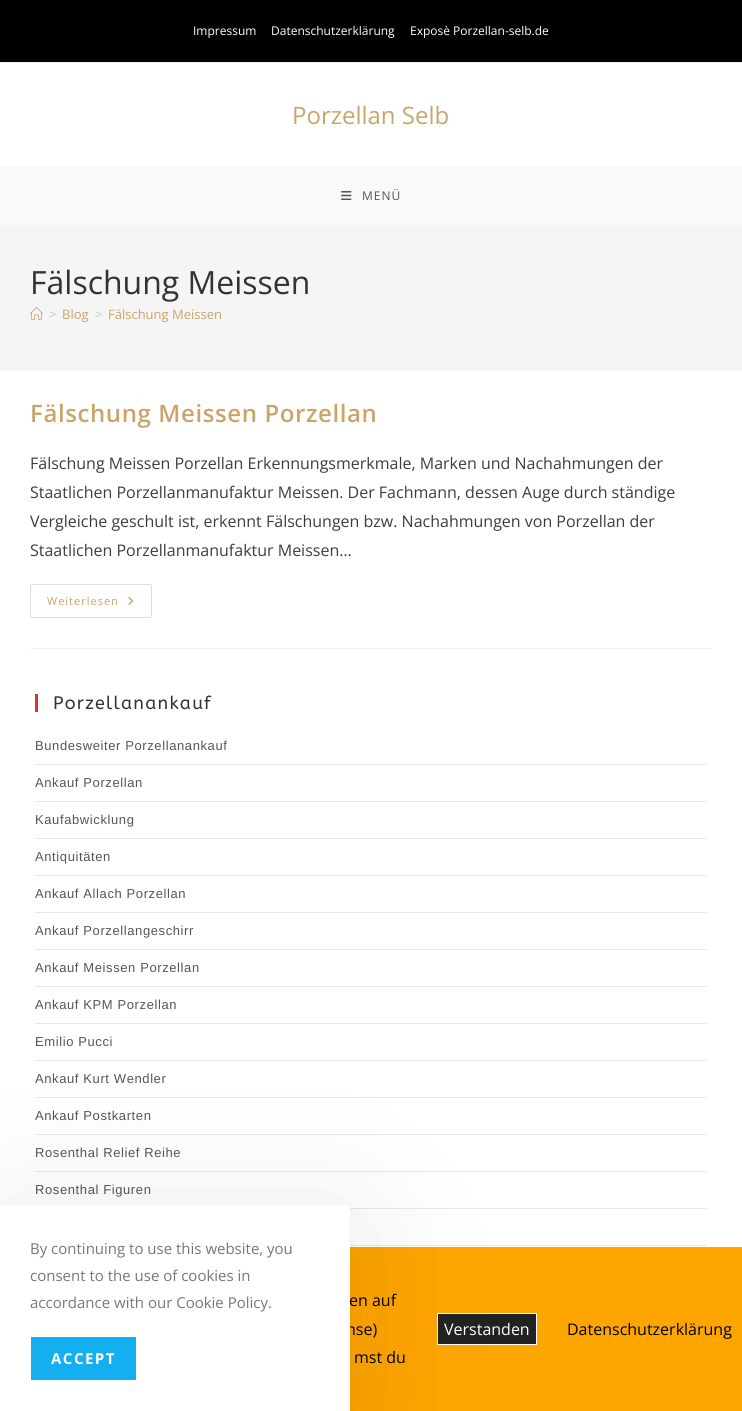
#include <cairo.h>
#include <math.h>
#include <stddef.h>

typedef struct { const char *family; double size; int italic, bold; unsigned color; } style_t;
static cairo_t *ctx;

static void ink(unsigned color) {
    cairo_set_source_rgb(ctx, (color >> 16) / 255.0, (color >> 8 & 255) / 255.0, (color & 255) / 255.0);
}

static void write(double x, double y, const char *s, const style_t *st) {
    cairo_select_font_face(ctx, st->family, st->italic ? CAIRO_FONT_SLANT_ITALIC : CAIRO_FONT_SLANT_NORMAL,
        st->bold ? CAIRO_FONT_WEIGHT_BOLD : CAIRO_FONT_WEIGHT_NORMAL);
    cairo_set_font_size(ctx, st->size);
    ink(st->color);
    cairo_move_to(ctx, x, y);
    cairo_show_text(ctx, s);
}

static void write_spaced(double x, double y, const char *s, double letter, double word) {
    cairo_move_to(ctx, x, y);
    while (*s) {
        char ch[5] = {0};
        int n = 0;
        do ch[n++] = *s++; while ((*s & 0xC0) == 0x80);
        cairo_show_text(ctx, ch);
        cairo_rel_move_to(ctx, letter + word * (*ch == ' '), 0);
    }
}

static void block(double x, double y, double w, double h, unsigned color) {
    ink(color);
    cairo_rectangle(ctx, x, y, w, h);
    cairo_fill(ctx);
}

static void round_path(double x, double y, double w, double h, double r) {
    cairo_new_sub_path(ctx);
    cairo_arc(ctx, x + w - r, y + h - r, r, 0, M_PI / 2);
    cairo_arc(ctx, x + r, y + h - r, r, M_PI / 2, M_PI);
    cairo_arc(ctx, x + r, y + r, r, M_PI, 1.5 * M_PI);
    cairo_arc(ctx, x + w - r, y + r, r, 1.5 * M_PI, 2 * M_PI);
    cairo_close_path(ctx);
}

static void blur_box(double x, double y, double w, double h, double r, double blur, double alpha) {
    cairo_push_group_with_content(ctx, CAIRO_CONTENT_ALPHA);
    cairo_set_operator(ctx, CAIRO_OPERATOR_SOURCE);
    for (int i = 15; i >= -15 && fmin(w, h) + blur * i / 3 > 0; i -= 2) {
        double e = blur * i / 6;
        cairo_set_source_rgba(ctx, 0, 0, 0, alpha * erfc((i - 1) / 8.5) / 2);
        round_path(x - e, y - e, w + 2 * e, h + 2 * e, fmax(0, fmin(r + e + blur * .6, fmin(w, h) / 2 + e)));
        cairo_fill(ctx);
    }
    cairo_pattern_t *soft = cairo_pop_group(ctx);
    cairo_mask(ctx, soft);
    cairo_pattern_destroy(soft);
}

static void paste(const char *path, double x, double y, double w, double h) {
    cairo_surface_t *image = cairo_image_surface_create_from_png(path);
    cairo_save(ctx);
    cairo_set_source_surface(ctx, image, x, y);
    cairo_rectangle(ctx, x, y, w, h);
    cairo_fill(ctx);
    cairo_restore(ctx);
    cairo_surface_destroy(image);
}

static const style_t s1 = {"Open Sans", 12, 0, 0, 0xffffff};
static const style_t s2 = {"Open Sans", 24, 0, 0, 0xcaa46a};
static const style_t s3 = {"Open Sans", 32, 0, 0, 0x333333};
static const style_t s4 = {"Open Sans", 13, 0, 0, 0xc6c6c6};
static const style_t s5 = {"Open Sans", 13, 0, 0, 0xcaa46a};
static const style_t s6 = {"Open Sans", 16, 0, 0, 0x3d3d3d};
static const style_t s7 = {"Open Sans", 16, 0, 0, 0x000000};
static const style_t s8 = {"Open Sans", 15, 0, 0, 0x777777};
static const style_t s9 = {"Open Sans", 16, 0, 0, 0xffffff};

int main(void) {
    cairo_surface_t *surface = cairo_image_surface_create(CAIRO_FORMAT_RGB24, 742, 1411);
    ctx = cairo_create(surface);
    cairo_font_options_t *options = cairo_font_options_create();
    cairo_font_options_set_hint_metrics(options, CAIRO_HINT_METRICS_OFF);
    cairo_font_options_set_hint_style(options, CAIRO_HINT_STYLE_NONE);
    cairo_set_font_options(ctx, options);
    cairo_set_miter_limit(ctx, 4);
    ink(0xffffff);
    cairo_paint(ctx);
    block(0, 0, 742, 62, 0x000000);
    block(0, 62, 742, 1, 0xf1f1f1);
    write(193, 35, "Impressum", &s1);
    write(271, 35, "Datenschutzerklärung", &s1);
    write(410, 35, "Exposè Porzellan-selb.de", &s1);
    write(292, 124, "Porzellan Selb", &s2);
    block(0, 166, 742, 60, 0xf9f9f9);
    paste("pic1.png", 341, 191, 11, 9);
    cairo_set_font_size(ctx, 12);
    ink(0x555555);
    write_spaced(362, 200, "MENÜ", 1, 0);
    block(0, 226, 742, 145, 0xf5f5f5);
    write(30, 294, "Fälschung Meissen", &s3);
    paste("pic2.png", 30, 306, 13, 14);
    write(49, 319, ">", &s4);
    write(62, 319, "Blog", &s5);
    write(95, 319, ">", &s4);
    write(108, 319, "Fälschung Meissen", &s5);
    block(30, 648, 682, 1, 0xf1f1f1);
    cairo_select_font_face(ctx, "Open Sans SemiBold", CAIRO_FONT_SLANT_NORMAL, CAIRO_FONT_WEIGHT_NORMAL);
    cairo_set_font_size(ctx, 24);
    ink(0xcaa46a);
    write_spaced(30, 422, "Fälschung Meissen Porzellan", 0.6, 0);
    write(30, 469, "Fälschung Meissen Porzellan Erkennungsmerkmale, Marken und Nachahmungen der", &s6);
    write(30, 498, "Staatlichen Porzellanmanufaktur Meissen. Der Fachmann, dessen Auge durch ständige", &s6);
    write(30, 527, "Vergleiche geschult ist, erkennt Fälschungen bzw. Nachahmungen von Porzellan der", &s6);
    write(30, 556, "Staatlichen Porzellanmanufaktur Meissen…", &s6);
    round_path(30.5, 584.5, 121, 33, 1.5);
    ink(0xdddddd);
    cairo_set_line_width(ctx, 1);
    cairo_stroke(ctx);
    cairo_set_font_size(ctx, 11);
    ink(0xcaa46a);
    write_spaced(47, 605, "Weiterlesen", 1, 0);
    paste("pic3.png", 128, 596, 6, 9);
    block(35, 694, 3, 18, 0xdd3333);
    cairo_select_font_face(ctx, "ABeeZee", CAIRO_FONT_SLANT_NORMAL, CAIRO_FONT_WEIGHT_NORMAL);
    cairo_set_font_size(ctx, 18);
    ink(0x333333);
    write_spaced(53, 709, "Porzellanankauf", 1.25, 0);
    block(35, 764, 672, 1, 0xe9e9e9);
    cairo_select_font_face(ctx, "Liberation Sans", CAIRO_FONT_SLANT_NORMAL, CAIRO_FONT_WEIGHT_NORMAL);
    cairo_set_font_size(ctx, 13);
    ink(0x555555);
    write_spaced(35, 750, "Bundesweiter Porzellanankauf", 0.6, 0);
    block(35, 801, 672, 1, 0xe9e9e9);
    ink(0x555555);
    write_spaced(35, 787, "Ankauf Porzellan", 0.6, 0);
    block(35, 838, 672, 1, 0xe9e9e9);
    ink(0x555555);
    write_spaced(35, 824, "Kaufabwicklung", 0.6, 0);
    block(35, 875, 672, 1, 0xe9e9e9);
    ink(0x555555);
    write_spaced(35, 861, "Antiquitäten", 0.6, 0);
    block(35, 912, 672, 1, 0xe9e9e9);
    ink(0x555555);
    write_spaced(35, 898, "Ankauf Allach Porzellan", 0.6, 0);
    block(35, 949, 672, 1, 0xe9e9e9);
    ink(0x555555);
    write_spaced(35, 935, "Ankauf Porzellangeschirr", 0.6, 0);
    block(35, 986, 672, 1, 0xe9e9e9);
    ink(0x555555);
    write_spaced(35, 972, "Ankauf Meissen Porzellan", 0.6, 0);
    block(35, 1023, 672, 1, 0xe9e9e9);
    ink(0x555555);
    write_spaced(35, 1009, "Ankauf KPM Porzellan", 0.6, 0);
    block(35, 1060, 672, 1, 0xe9e9e9);
    ink(0x555555);
    write_spaced(35, 1046, "Emilio Pucci", 0.6, 0);
    block(35, 1097, 672, 1, 0xe9e9e9);
    ink(0x555555);
    write_spaced(35, 1083, "Ankauf Kurt Wendler", 0.6, 0);
    block(35, 1134, 672, 1, 0xe9e9e9);
    ink(0x555555);
    write_spaced(35, 1120, "Ankauf Postkarten", 0.6, 0);
    block(35, 1171, 672, 1, 0xe9e9e9);
    ink(0x555555);
    write_spaced(35, 1157, "Rosenthal Relief Reihe", 0.6, 0);
    block(349, 1208, 358, 1, 0xe9e9e9);
    ink(0x555555);
    write_spaced(35, 1194, "Rosenthal Figuren", 0.6, 0);
    block(350, 1245, 357, 1, 0xe9e9e9);
    block(350, 1247, 392, 164, 0xffa500);
    ink(0x222222);
    cairo_rectangle(ctx, 437.5, 1313.5, 99, 31);
    cairo_fill_preserve(ctx);
    ink(0xffffff);
    cairo_stroke(ctx);
    ink(0x000000);
    blur_box(0, 1225, 350, 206, 4, 75, 0.1);
    write(346, 1335, "nse)", &s7);
    ink(0xffffff);
    cairo_new_path(ctx);
    cairo_move_to(ctx, 0, 1205);
    cairo_line_to(ctx, 346, 1205);
    cairo_curve_to(ctx, 348, 1205, 350, 1207, 350, 1209);
    cairo_line_to(ctx, 350, 1411);
    cairo_line_to(ctx, 0, 1411);
    cairo_close_path(ctx);
    cairo_fill(ctx);
    write(30, 1254, "By continuing to use this website, you", &s8);
    write(30, 1281, "consent to the use of cookies in", &s8);
    write(30, 1308, "accordance with our Cookie Policy.", &s8);
    block(31, 1337, 105, 43, 0x13aff0);
    cairo_select_font_face(ctx, "Open Sans", CAIRO_FONT_SLANT_NORMAL, CAIRO_FONT_WEIGHT_BOLD);
    ink(0xffffff);
    write_spaced(51, 1364, "ACCEPT", 1.5, 0);
    write(349, 1306, "en auf", &s7);
    write(354, 1363, "mst du", &s7);
    write(444, 1335, "Verstanden", &s9);
    write(567, 1335, "Datenschutzerklärung", &s7);
    cairo_surface_write_to_png(surface, "screenshot.png");
    cairo_font_options_destroy(options);
    cairo_destroy(ctx);
    cairo_surface_destroy(surface);
    return 0;
}
